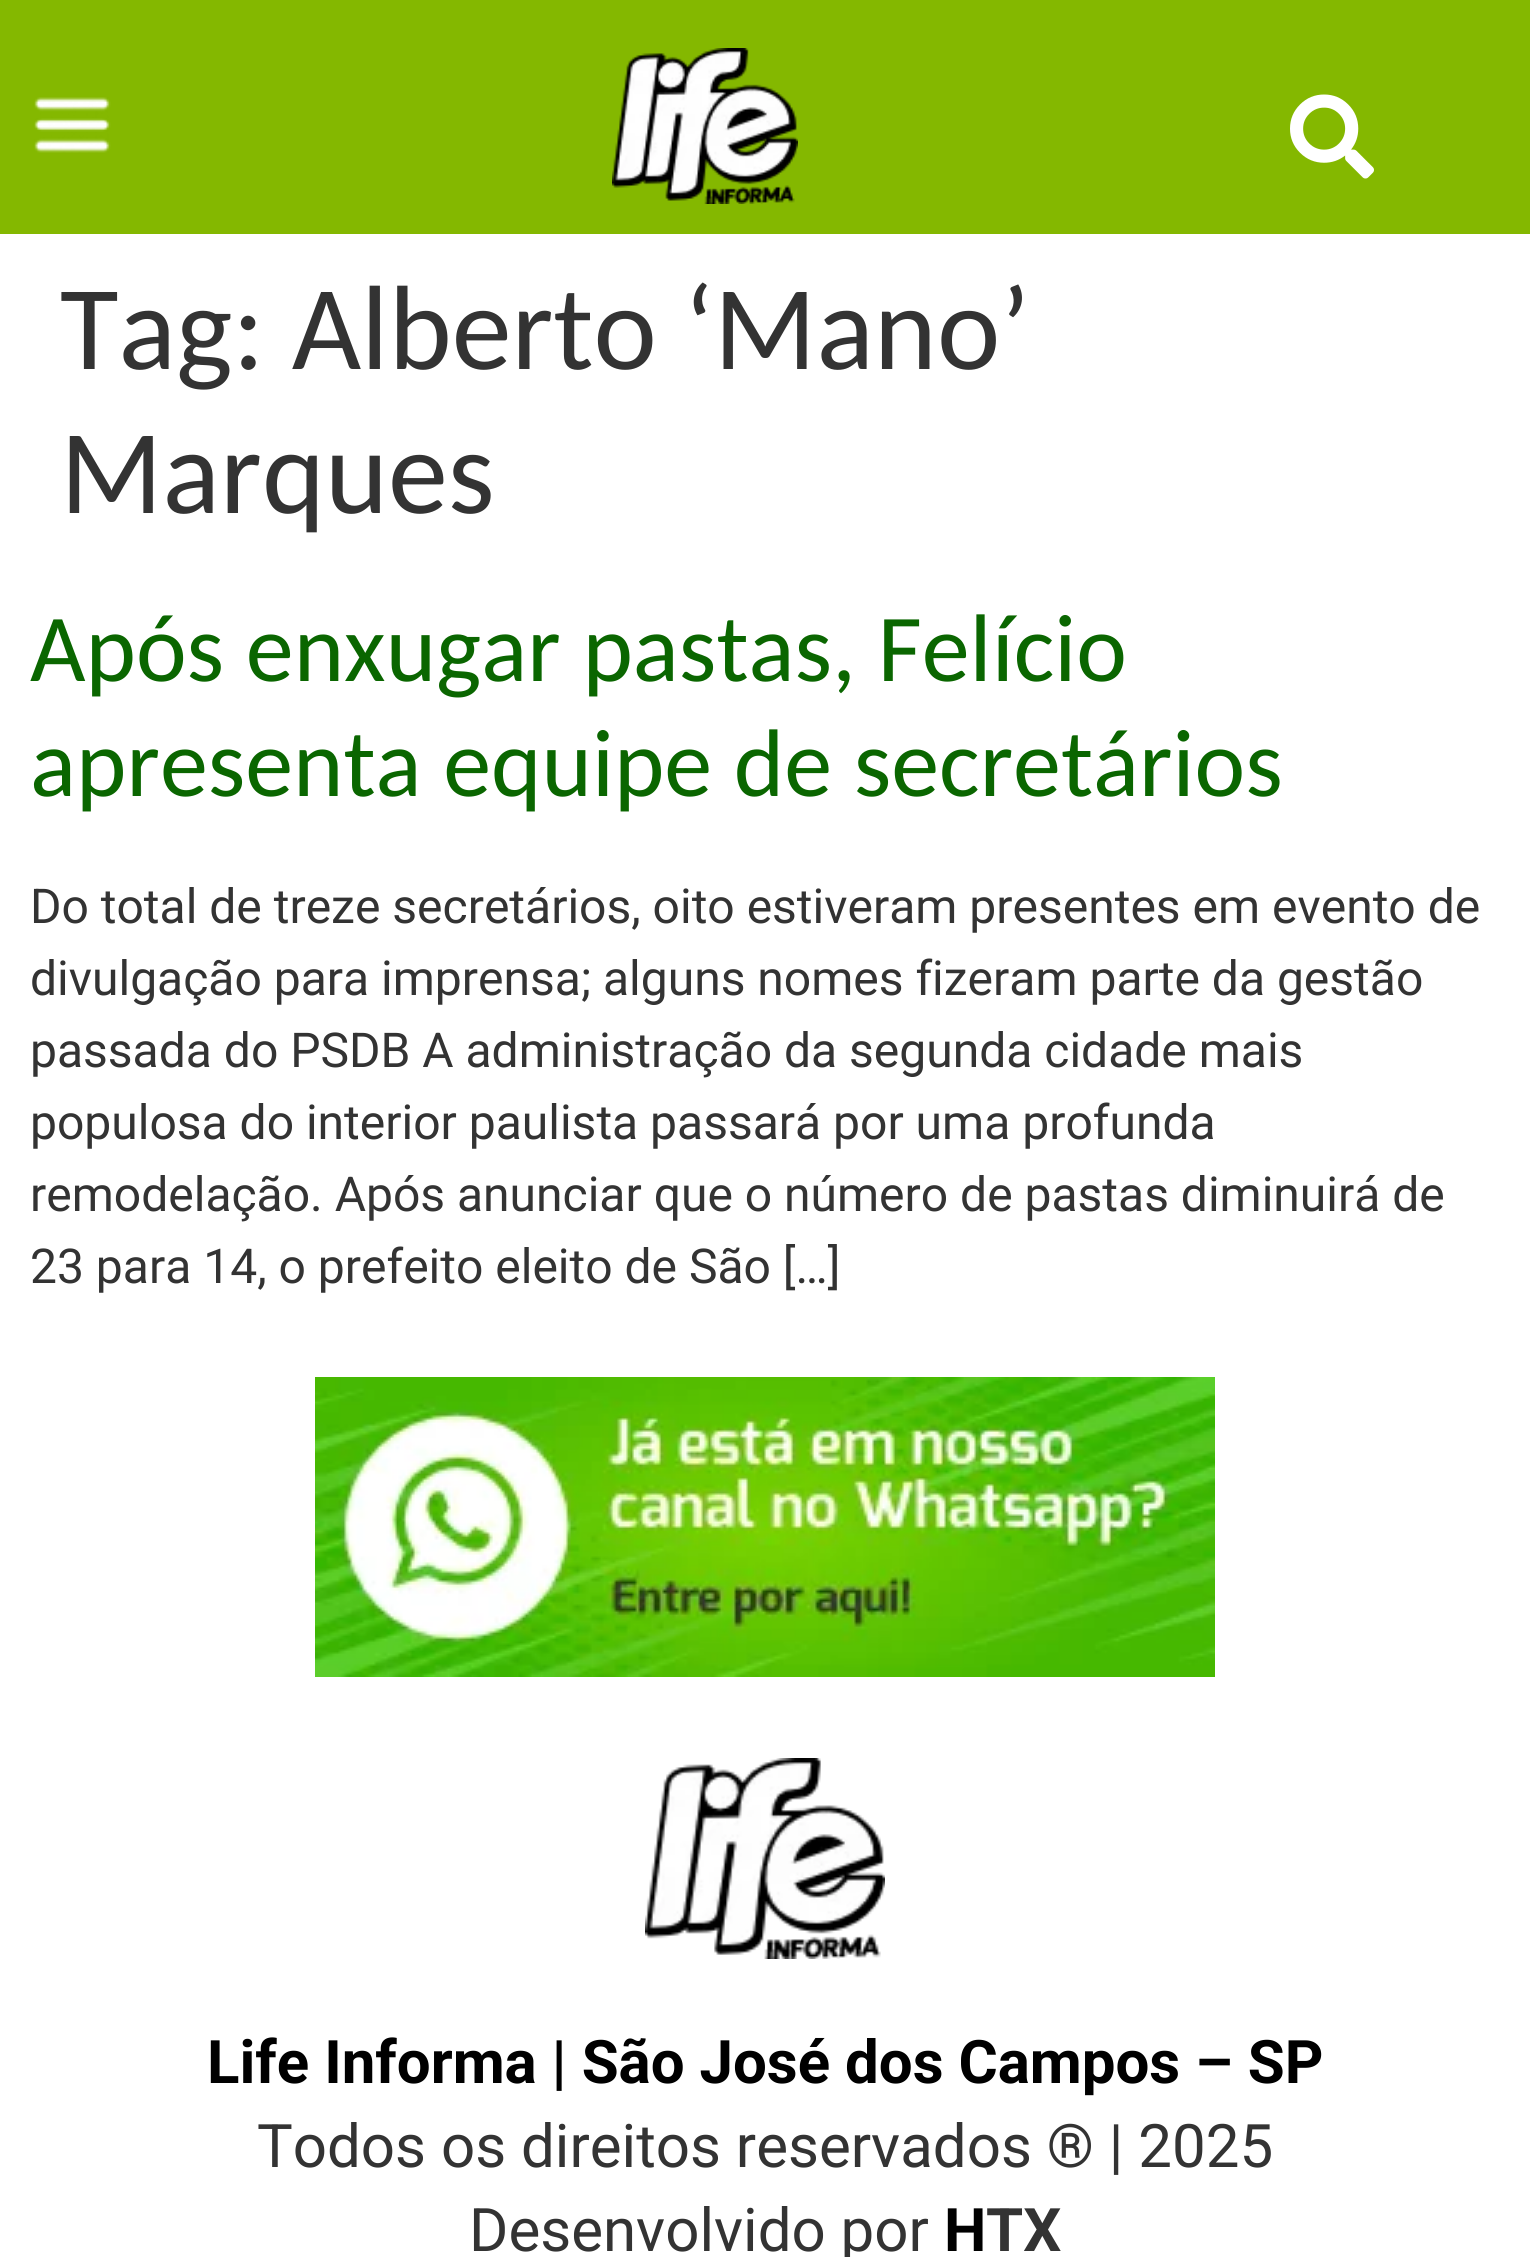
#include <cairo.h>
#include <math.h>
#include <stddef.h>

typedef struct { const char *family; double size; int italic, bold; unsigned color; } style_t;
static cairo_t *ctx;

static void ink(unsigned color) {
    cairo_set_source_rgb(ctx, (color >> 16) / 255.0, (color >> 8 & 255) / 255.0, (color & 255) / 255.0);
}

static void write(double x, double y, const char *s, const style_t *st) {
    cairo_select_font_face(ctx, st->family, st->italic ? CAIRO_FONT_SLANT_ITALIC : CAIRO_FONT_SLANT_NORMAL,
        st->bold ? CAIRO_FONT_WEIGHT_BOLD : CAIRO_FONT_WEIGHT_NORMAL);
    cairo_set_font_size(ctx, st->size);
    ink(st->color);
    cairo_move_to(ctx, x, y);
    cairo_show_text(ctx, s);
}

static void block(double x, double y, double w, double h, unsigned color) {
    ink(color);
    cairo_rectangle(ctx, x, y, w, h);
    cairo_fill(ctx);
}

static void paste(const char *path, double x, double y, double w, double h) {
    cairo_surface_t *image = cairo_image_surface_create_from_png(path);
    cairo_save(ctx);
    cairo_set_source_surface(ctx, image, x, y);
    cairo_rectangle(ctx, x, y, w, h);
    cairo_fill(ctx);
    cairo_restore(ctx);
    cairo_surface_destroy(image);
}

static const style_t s1 = {"Carlito", 120, 0, 0, 0x333333};
static const style_t s2 = {"Carlito", 96, 0, 0, 0x0a6600};
static const style_t s3 = {"Roboto", 48, 0, 0, 0x333333};
static const style_t s4 = {"Roboto", 60, 0, 1, 0x000000};
static const style_t s5 = {"Roboto", 60, 0, 0, 0x333333};
static const style_t s6 = {"Roboto", 60, 0, 1, 0x333333};

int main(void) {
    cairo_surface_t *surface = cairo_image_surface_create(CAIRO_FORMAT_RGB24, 1530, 2257);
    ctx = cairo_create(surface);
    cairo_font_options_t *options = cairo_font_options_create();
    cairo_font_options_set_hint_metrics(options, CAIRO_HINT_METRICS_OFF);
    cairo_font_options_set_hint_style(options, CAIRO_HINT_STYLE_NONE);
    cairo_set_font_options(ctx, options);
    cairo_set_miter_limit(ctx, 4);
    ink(0xffffff);
    cairo_paint(ctx);
    block(0, 0, 1530, 234, 0x84b800);
    paste("pic1.png", 34, 97, 77, 56);
    paste("pic2.png", 612, 48, 186, 156);
    paste("pic3.png", 1290, 94, 84, 85);
    write(60, 369, "Tag: Alberto ‘Mano’", &s1);
    write(60, 513, "Marques", &s1);
    write(30, 681, "Após enxugar pastas, Felício", &s2);
    write(30, 796, "apresenta equipe de secretários", &s2);
    write(30, 923, "Do total de treze secretários, oito estiveram presentes em evento de", &s3);
    write(30, 995, "divulgação para imprensa; alguns nomes fizeram parte da gestão", &s3);
    write(30, 1067, "passada do PSDB A administração da segunda cidade mais", &s3);
    write(30, 1139, "populosa do interior paulista passará por uma profunda", &s3);
    write(30, 1211, "remodelação. Após anunciar que o número de pastas diminuirá de", &s3);
    write(30, 1283, "23 para 14, o prefeito eleito de São […]", &s3);
    paste("pic4.png", 315, 1377, 900, 300);
    paste("pic5.png", 645, 1758, 240, 201);
    write(207, 2083, "Life Informa | São José dos Campos – SP", &s4);
    write(257, 2167, "Todos os direitos reservados ® | 2025", &s5);
    write(469, 2251, "Desenvolvido por", &s5);
    write(944, 2251, "H", &s4);
    write(986, 2251, "TX", &s6);
    cairo_surface_write_to_png(surface, "screenshot.png");
    cairo_font_options_destroy(options);
    cairo_destroy(ctx);
    cairo_surface_destroy(surface);
    return 0;
}
